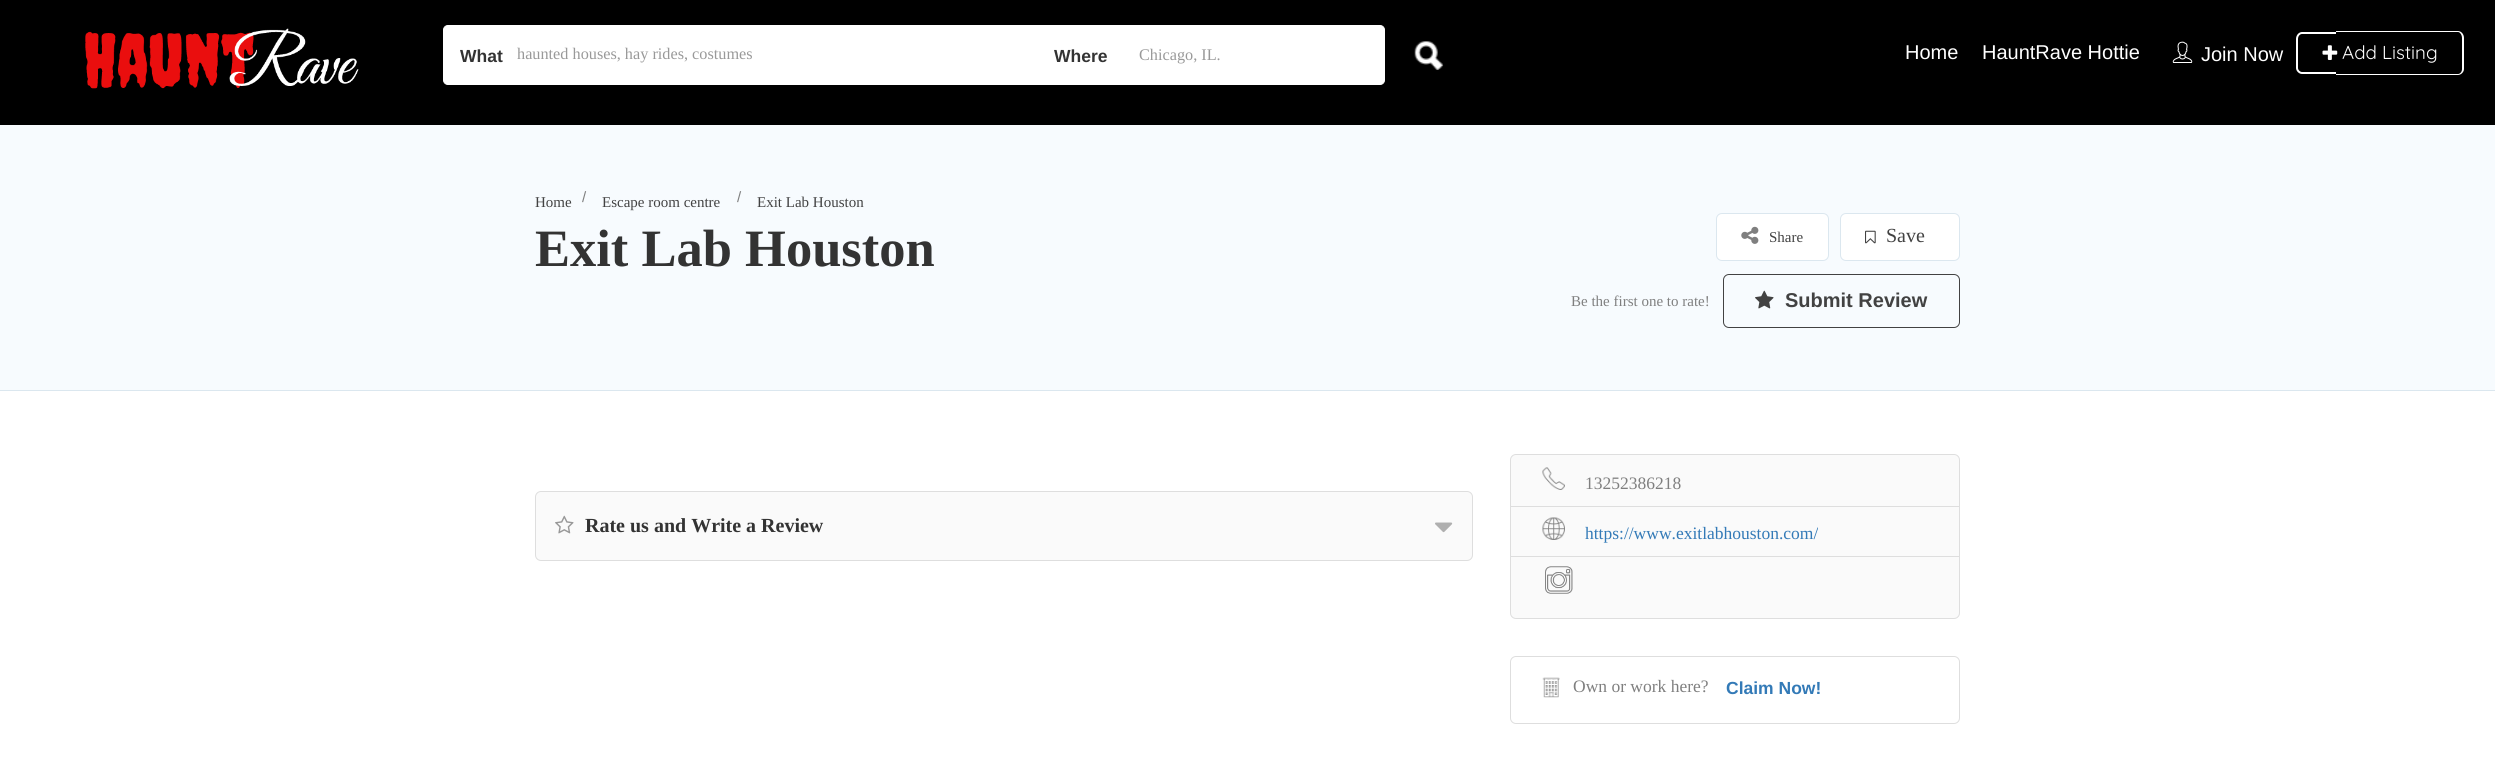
#include <cairo.h>
#include <math.h>
#include <stddef.h>

typedef struct { const char *family; double size; int italic, bold; unsigned color; } style_t;
static cairo_t *ctx;

static void ink(unsigned color) {
    cairo_set_source_rgb(ctx, (color >> 16) / 255.0, (color >> 8 & 255) / 255.0, (color & 255) / 255.0);
}

static void write(double x, double y, const char *s, const style_t *st) {
    cairo_select_font_face(ctx, st->family, st->italic ? CAIRO_FONT_SLANT_ITALIC : CAIRO_FONT_SLANT_NORMAL,
        st->bold ? CAIRO_FONT_WEIGHT_BOLD : CAIRO_FONT_WEIGHT_NORMAL);
    cairo_set_font_size(ctx, st->size);
    ink(st->color);
    cairo_move_to(ctx, x, y);
    cairo_show_text(ctx, s);
}

static void block(double x, double y, double w, double h, unsigned color) {
    ink(color);
    cairo_rectangle(ctx, x, y, w, h);
    cairo_fill(ctx);
}

static void round_path(double x, double y, double w, double h, double r) {
    cairo_new_sub_path(ctx);
    cairo_arc(ctx, x + w - r, y + h - r, r, 0, M_PI / 2);
    cairo_arc(ctx, x + r, y + h - r, r, M_PI / 2, M_PI);
    cairo_arc(ctx, x + r, y + r, r, M_PI, 1.5 * M_PI);
    cairo_arc(ctx, x + w - r, y + r, r, 1.5 * M_PI, 2 * M_PI);
    cairo_close_path(ctx);
}

static void paste(const char *path, double x, double y, double w, double h) {
    cairo_surface_t *image = cairo_image_surface_create_from_png(path);
    cairo_save(ctx);
    cairo_set_source_surface(ctx, image, x, y);
    cairo_rectangle(ctx, x, y, w, h);
    cairo_fill(ctx);
    cairo_restore(ctx);
    cairo_surface_destroy(image);
}

static const style_t s1 = {"Liberation Sans", 17.5, 0, 1, 0x333333};
static const style_t s2 = {"Liberation Serif", 16.25, 0, 0, 0x999999};
static const style_t s3 = {"Liberation Sans", 20, 0, 0, 0xffffff};
static const style_t s4 = {"Quicksand Light", 18.75, 0, 0, 0xffffff};
static const style_t s5 = {"Liberation Serif", 15, 0, 0, 0x424242};
static const style_t s6 = {"Liberation Sans", 15, 0, 0, 0x7f7f7f};
static const style_t s7 = {"Liberation Serif", 52.5, 0, 1, 0x333333};
static const style_t s8 = {"Liberation Serif", 20, 0, 0, 0x424242};
static const style_t s9 = {"Liberation Serif", 15, 0, 0, 0x7f7f7f};
static const style_t s10 = {"Liberation Sans", 20, 0, 1, 0x424242};
static const style_t s11 = {"Liberation Serif", 20, 0, 1, 0x333333};
static const style_t s12 = {"Liberation Serif", 17.5, 0, 0, 0x7f7f7f};
static const style_t s13 = {"Liberation Serif", 17.5, 0, 0, 0x337ab7};
static const style_t s14 = {"Liberation Sans", 17.5, 0, 1, 0x337ab7};

int main(void) {
    cairo_surface_t *surface = cairo_image_surface_create(CAIRO_FORMAT_RGB24, 2495, 758);
    ctx = cairo_create(surface);
    cairo_font_options_t *options = cairo_font_options_create();
    cairo_font_options_set_hint_metrics(options, CAIRO_HINT_METRICS_OFF);
    cairo_font_options_set_hint_style(options, CAIRO_HINT_STYLE_NONE);
    cairo_set_font_options(ctx, options);
    cairo_set_miter_limit(ctx, 4);
    ink(0xf7fbfe);
    cairo_paint(ctx);
    block(0, 0, 2495, 125, 0x000000);
    paste("pic1.png", 85, 28, 274, 61);
    ink(0xffffff);
    cairo_new_path(ctx);
    cairo_move_to(ctx, 448, 25.5);
    cairo_line_to(ctx, 1037.5, 25.5);
    cairo_line_to(ctx, 1037.5, 84.5);
    cairo_line_to(ctx, 448, 84.5);
    cairo_curve_to(ctx, 445.5, 84.5, 443.5, 82.5, 443.5, 80);
    cairo_line_to(ctx, 443.5, 30);
    cairo_curve_to(ctx, 443.5, 27.5, 445.5, 25.5, 448, 25.5);
    cairo_close_path(ctx);
    cairo_fill_preserve(ctx);
    cairo_set_line_width(ctx, 1);
    cairo_stroke(ctx);
    write(460, 62, "What", &s1);
    write(517, 59, "haunted houses, hay rides, costumes", &s2);
    ink(0xffffff);
    cairo_new_path(ctx);
    cairo_move_to(ctx, 1038.5, 25.5);
    cairo_line_to(ctx, 1380, 25.5);
    cairo_curve_to(ctx, 1382.5, 25.5, 1384.5, 27.5, 1384.5, 30);
    cairo_line_to(ctx, 1384.5, 80);
    cairo_curve_to(ctx, 1384.5, 82.5, 1382.5, 84.5, 1380, 84.5);
    cairo_line_to(ctx, 1038.5, 84.5);
    cairo_close_path(ctx);
    cairo_fill_preserve(ctx);
    cairo_stroke(ctx);
    write(1054, 62, "Where", &s1);
    write(1139, 60, "Chicago, IL.", &s2);
    paste("pic2.png", 1414, 41, 30, 29);
    write(1905, 59, "Home", &s3);
    write(1982, 59, "HauntRave Hottie", &s3);
    paste("pic3.png", 2172, 41, 21, 22);
    write(2201, 61, "Join Now", &s3);
    cairo_set_fill_rule(ctx, CAIRO_FILL_RULE_EVEN_ODD);
    cairo_new_path(ctx);
    cairo_move_to(ctx, 2302, 32);
    cairo_line_to(ctx, 2336, 32);
    cairo_line_to(ctx, 2336, 74);
    cairo_line_to(ctx, 2302, 74);
    cairo_curve_to(ctx, 2299, 74, 2296, 71, 2296, 68);
    cairo_line_to(ctx, 2296, 39);
    cairo_curve_to(ctx, 2296, 35, 2299, 32, 2302, 32);
    cairo_close_path(ctx);
    cairo_move_to(ctx, 2302, 34);
    cairo_line_to(ctx, 2336, 34);
    cairo_line_to(ctx, 2336, 72);
    cairo_line_to(ctx, 2302, 72);
    cairo_curve_to(ctx, 2300, 72, 2298, 70, 2298, 68);
    cairo_line_to(ctx, 2298, 39);
    cairo_curve_to(ctx, 2298, 36, 2300, 34, 2302, 34);
    cairo_close_path(ctx);
    cairo_fill(ctx);
    cairo_new_path(ctx);
    cairo_move_to(ctx, 2336, 31);
    cairo_line_to(ctx, 2458, 31);
    cairo_curve_to(ctx, 2461, 31, 2464, 34, 2464, 38);
    cairo_line_to(ctx, 2464, 69);
    cairo_curve_to(ctx, 2464, 72, 2461, 75, 2458, 75);
    cairo_line_to(ctx, 2336, 75);
    cairo_close_path(ctx);
    cairo_move_to(ctx, 2336, 32);
    cairo_line_to(ctx, 2458, 32);
    cairo_curve_to(ctx, 2460, 32, 2462, 35, 2462, 38);
    cairo_line_to(ctx, 2462, 69);
    cairo_curve_to(ctx, 2462, 72, 2460, 74, 2458, 74);
    cairo_line_to(ctx, 2336, 74);
    cairo_close_path(ctx);
    cairo_fill(ctx);
    paste("pic4.png", 2322, 45, 16, 15);
    write(2342, 59, "Add Listing", &s4);
    block(0, 390, 2495, 1, 0xdbe7ef);
    write(535, 207, "Home", &s5);
    write(582, 202, "/", &s6);
    write(602, 207, "Escape room centre", &s5);
    write(737, 202, "/", &s6);
    write(757, 207, "Exit Lab Houston", &s5);
    write(535, 266, "Exit Lab Houston", &s7);
    ink(0xffffff);
    round_path(1716.5, 213.5, 112, 47, 5.5);
    cairo_fill_preserve(ctx);
    ink(0xdbe7ef);
    cairo_stroke(ctx);
    paste("pic5.png", 1741, 226, 18, 18);
    write(1769, 242, "Share", &s5);
    ink(0xffffff);
    round_path(1840.5, 213.5, 119, 47, 5.5);
    cairo_fill_preserve(ctx);
    ink(0xdbe7ef);
    cairo_stroke(ctx);
    paste("pic6.png", 1865, 230, 11, 14);
    write(1886, 242, "Save", &s8);
    write(1571, 306, "Be the first one to rate!", &s9);
    round_path(1723.5, 274.5, 236, 53, 5.5);
    ink(0x424242);
    cairo_stroke(ctx);
    paste("pic7.png", 1755, 290, 19, 19);
    write(1785, 307, "Submit Review", &s10);
    block(0, 391, 2495, 367, 0xffffff);
    ink(0xfafafa);
    round_path(535.5, 491.5, 937, 69, 5.5);
    cairo_fill_preserve(ctx);
    ink(0xdedede);
    cairo_stroke(ctx);
    paste("pic8.png", 555, 515, 19, 19);
    write(585, 532, "Rate us and Write a Review", &s11);
    paste("pic9.png", 1435, 522, 18, 11);
    ink(0xfafafa);
    round_path(1510.5, 454.5, 449, 164, 5.5);
    cairo_fill_preserve(ctx);
    ink(0xdedede);
    cairo_stroke(ctx);
    block(1511, 506, 448, 1, 0xdedede);
    paste("pic10.png", 1542, 467, 23, 23);
    write(1585, 489, "13252386218", &s12);
    paste("pic11.png", 1542, 517, 23, 23);
    write(1585, 539, "https://www.exitlabhouston.com/", &s13);
    block(1511, 556, 448, 1, 0xdedede);
    paste("pic12.png", 1545, 566, 28, 28);
    round_path(1510.5, 656.5, 449, 67, 5.5);
    cairo_stroke(ctx);
    paste("pic13.png", 1542, 677, 18, 21);
    write(1573, 692, "Own or work here?", &s12);
    write(1726, 694, "Claim Now!", &s14);
    cairo_surface_write_to_png(surface, "screenshot.png");
    cairo_font_options_destroy(options);
    cairo_destroy(ctx);
    cairo_surface_destroy(surface);
    return 0;
}
